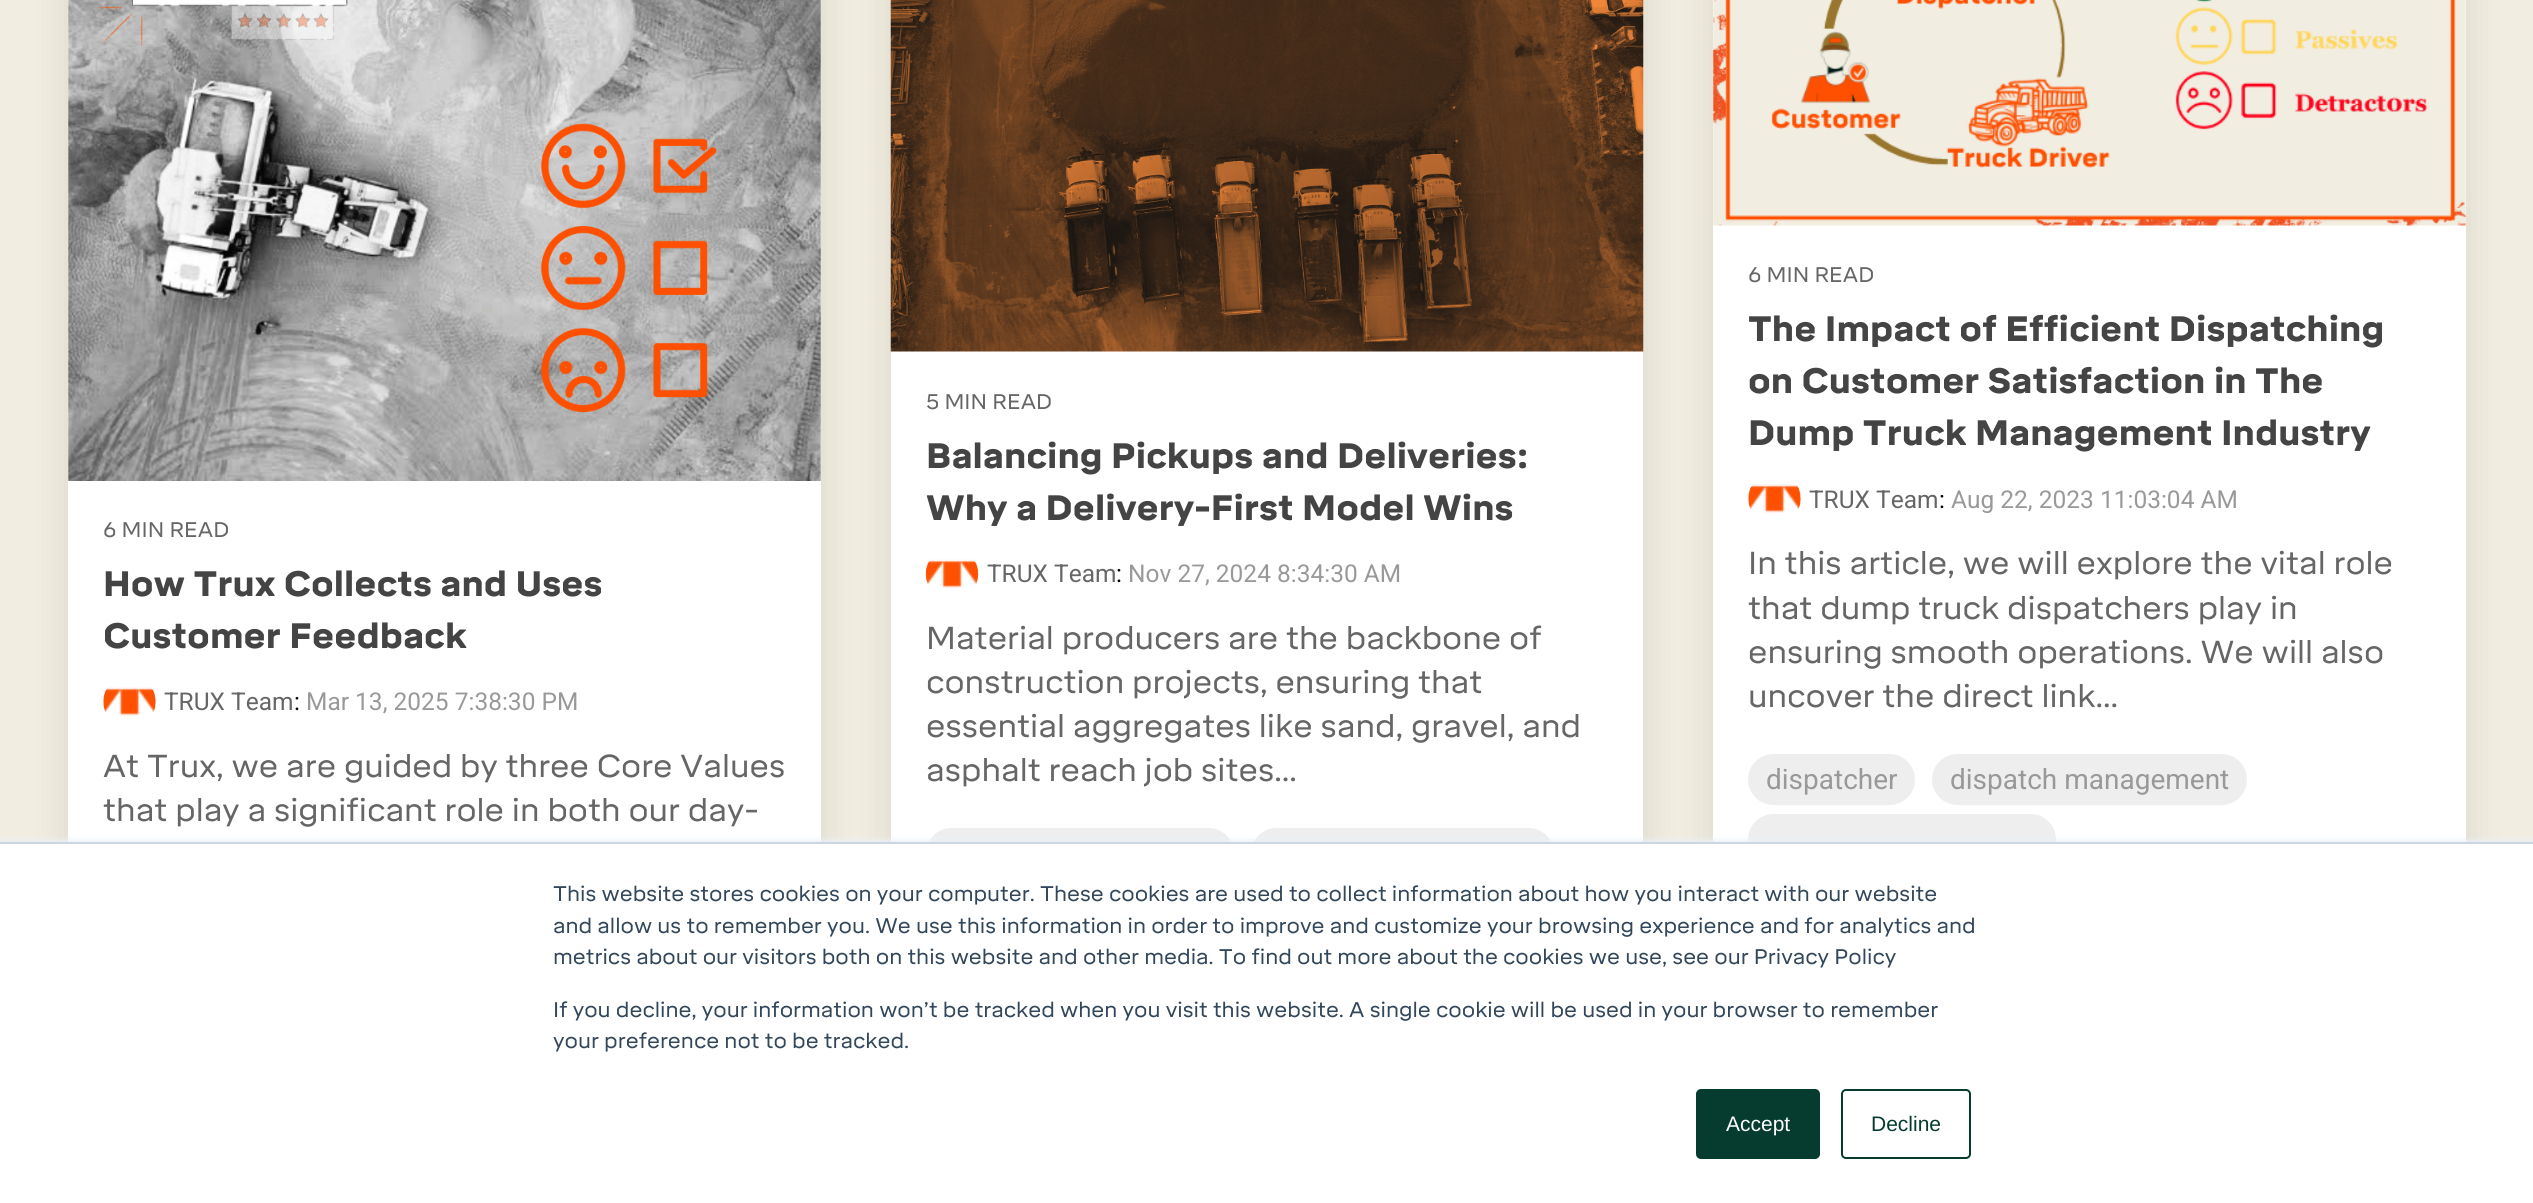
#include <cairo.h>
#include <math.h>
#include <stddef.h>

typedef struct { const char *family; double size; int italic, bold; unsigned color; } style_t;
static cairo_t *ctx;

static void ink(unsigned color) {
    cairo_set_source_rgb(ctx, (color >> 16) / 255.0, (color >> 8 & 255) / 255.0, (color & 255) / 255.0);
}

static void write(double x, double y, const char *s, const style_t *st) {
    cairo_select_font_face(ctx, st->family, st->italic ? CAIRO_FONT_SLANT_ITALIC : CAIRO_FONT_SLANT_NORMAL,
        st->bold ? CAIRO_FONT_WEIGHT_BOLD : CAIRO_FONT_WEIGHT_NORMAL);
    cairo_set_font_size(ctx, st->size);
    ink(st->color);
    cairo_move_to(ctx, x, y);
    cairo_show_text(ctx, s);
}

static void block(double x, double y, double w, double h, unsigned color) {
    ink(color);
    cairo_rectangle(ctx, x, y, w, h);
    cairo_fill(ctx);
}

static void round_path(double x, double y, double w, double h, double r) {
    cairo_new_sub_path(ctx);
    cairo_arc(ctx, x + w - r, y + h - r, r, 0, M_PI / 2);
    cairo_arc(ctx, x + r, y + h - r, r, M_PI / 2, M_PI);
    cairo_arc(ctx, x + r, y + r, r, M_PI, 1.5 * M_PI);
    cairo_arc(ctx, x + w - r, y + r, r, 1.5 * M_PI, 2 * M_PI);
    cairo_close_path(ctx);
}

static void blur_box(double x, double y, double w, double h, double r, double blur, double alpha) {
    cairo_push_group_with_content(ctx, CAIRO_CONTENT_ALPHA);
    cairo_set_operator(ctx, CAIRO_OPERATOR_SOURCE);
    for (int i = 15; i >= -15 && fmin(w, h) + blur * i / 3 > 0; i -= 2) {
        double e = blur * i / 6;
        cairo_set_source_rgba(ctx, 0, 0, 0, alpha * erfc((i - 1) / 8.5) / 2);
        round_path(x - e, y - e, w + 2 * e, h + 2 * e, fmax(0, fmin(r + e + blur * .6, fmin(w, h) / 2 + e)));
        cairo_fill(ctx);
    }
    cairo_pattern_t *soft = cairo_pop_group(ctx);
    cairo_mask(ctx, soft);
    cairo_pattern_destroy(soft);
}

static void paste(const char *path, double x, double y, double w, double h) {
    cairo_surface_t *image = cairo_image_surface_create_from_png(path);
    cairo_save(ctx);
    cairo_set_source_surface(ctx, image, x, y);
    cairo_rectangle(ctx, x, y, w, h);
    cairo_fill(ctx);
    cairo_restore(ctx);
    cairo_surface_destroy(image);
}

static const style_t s1 = {"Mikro", 21, 0, 0, 0x666666};
static const style_t s2 = {"Mikro Black", 35, 0, 0, 0x444444};
static const style_t s3 = {"Roboto", 24.5, 0, 0, 0x666666};
static const style_t s4 = {"Roboto", 24.5, 0, 0, 0x000000};
static const style_t s5 = {"Roboto", 24.5, 0, 0, 0x999999};
static const style_t s6 = {"Mikro", 31.5, 0, 0, 0x666666};
static const style_t s7 = {"Roboto", 28, 0, 0, 0x999999};
static const style_t s8 = {"Mikro", 21, 0, 0, 0x33475b};
static const style_t s9 = {"Liberation Sans", 21, 0, 0, 0xffffff};
static const style_t s10 = {"Liberation Sans", 21, 0, 0, 0x053c2f};

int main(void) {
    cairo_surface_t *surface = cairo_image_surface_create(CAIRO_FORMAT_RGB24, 2533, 1203);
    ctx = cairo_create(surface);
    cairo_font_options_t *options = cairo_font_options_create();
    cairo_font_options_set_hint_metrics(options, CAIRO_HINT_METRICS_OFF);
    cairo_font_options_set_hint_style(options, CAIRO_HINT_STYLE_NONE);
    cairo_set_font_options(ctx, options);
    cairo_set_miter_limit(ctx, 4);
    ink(0xf2ede1);
    cairo_paint(ctx);
    ink(0x000000);
    blur_box(67, -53, 756, 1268, 0, 17.5, 0.1);
    block(68, 0, 753, 842, 0xffffff);
    paste("pic1.png", 68, 0, 753, 481);
    write(103, 537, "6 MIN READ", &s1);
    write(103, 596, "How Trux Collects and Uses", &s2);
    write(103, 648, "Customer Feedback", &s2);
    paste("pic2.png", 103, 687, 53, 29);
    write(164, 710, "TRUX Team", &s3);
    write(294, 710, ":", &s4);
    write(306, 710, "Mar 13, 2025 7:38:30 PM", &s5);
    write(103, 777, "At Trux, we are guided by three Core Values", &s6);
    write(103, 821, "that play a significant role in both our day-", &s6);
    ink(0x000000);
    blur_box(889, -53, 756, 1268, 0, 17.5, 0.1);
    block(891, 351, 752, 491, 0xffffff);
    paste("pic3.png", 890, 0, 754, 352);
    write(926, 409, "5 MIN READ", &s1);
    write(926, 468, "Balancing Pickups and Deliveries:", &s2);
    write(926, 520, "Why a Delivery-First Model Wins", &s2);
    paste("pic4.png", 925, 559, 54, 29);
    write(987, 582, "TRUX Team", &s3);
    write(1116, 582, ":", &s4);
    write(1128, 582, "Nov 27, 2024 8:34:30 AM", &s5);
    write(926, 649, "Material producers are the backbone of", &s6);
    write(926, 693, "construction projects, ensuring that", &s6);
    write(926, 737, "essential aggregates like sand, gravel, and", &s6);
    write(926, 781, "asphalt reach job sites...", &s6);
    ink(0xeeeeee);
    round_path(926, 828, 308, 51, 25.5);
    cairo_fill(ctx);
    round_path(1251, 828, 303, 51, 25.5);
    cairo_fill(ctx);
    ink(0x000000);
    blur_box(1712, -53, 756, 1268, 0, 17.5, 0.1);
    block(1713, 0, 753, 842, 0xffffff);
    paste("pic5.png", 1713, 0, 753, 226);
    write(1748, 282, "6 MIN READ", &s1);
    write(1748, 341, "The Impact of Efficient Dispatching", &s2);
    write(1748, 393, "on Customer Satisfaction in The", &s2);
    write(1748, 445, "Dump Truck Management Industry", &s2);
    paste("pic6.png", 1748, 484, 53, 29);
    write(1809, 508, "TRUX Team", &s3);
    write(1939, 508, ":", &s4);
    write(1951, 508, "Aug 22, 2023 11:03:04 AM", &s5);
    write(1748, 574, "In this article, we will explore the vital role", &s6);
    write(1748, 619, "that dump truck dispatchers play in", &s6);
    write(1748, 663, "ensuring smooth operations. We will also", &s6);
    write(1748, 707, "uncover the direct link...", &s6);
    ink(0xeeeeee);
    round_path(1748, 754, 167, 51, 25.5);
    cairo_fill(ctx);
    write(1766, 789, "dispatcher", &s7);
    ink(0xeeeeee);
    round_path(1932, 754, 315, 51, 25.5);
    cairo_fill(ctx);
    write(1950, 789, "dispatch management", &s7);
    ink(0xeeeeee);
    round_path(1748, 814, 308, 51, 25.5);
    cairo_fill(ctx);
    ink(0xeaf0f6);
    blur_box(0, 840, 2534, 362, 0, 2.5, 1);
    block(0, 844, 2533, 359, 0xffffff);
    block(0, 842, 2533, 2, 0xcbd6e2);
    write(553, 901, "This website stores cookies on your computer. These cookies are used to collect information about how you interact with our website", &s8);
    write(553, 933, "and allow us to remember you. We use this information in order to improve and customize your browsing experience and for analytics and", &s8);
    write(553, 964, "metrics about our visitors both on this website and other media. To find out more about the cookies we use, see our Privacy Policy", &s8);
    write(553, 1017, "If you decline, your information won’t be tracked when you visit this website. A single cookie will be used in your browser to remember", &s8);
    write(553, 1048, "your preference not to be tracked.", &s8);
    ink(0x053c2f);
    round_path(1697, 1090, 122, 68, 4);
    cairo_fill_preserve(ctx);
    cairo_stroke(ctx);
    write(1726, 1131, "Accept", &s9);
    round_path(1842, 1090, 128, 68, 4);
    ink(0x053c2f);
    cairo_stroke(ctx);
    write(1871, 1131, "Decline", &s10);
    cairo_surface_write_to_png(surface, "screenshot.png");
    cairo_font_options_destroy(options);
    cairo_destroy(ctx);
    cairo_surface_destroy(surface);
    return 0;
}
